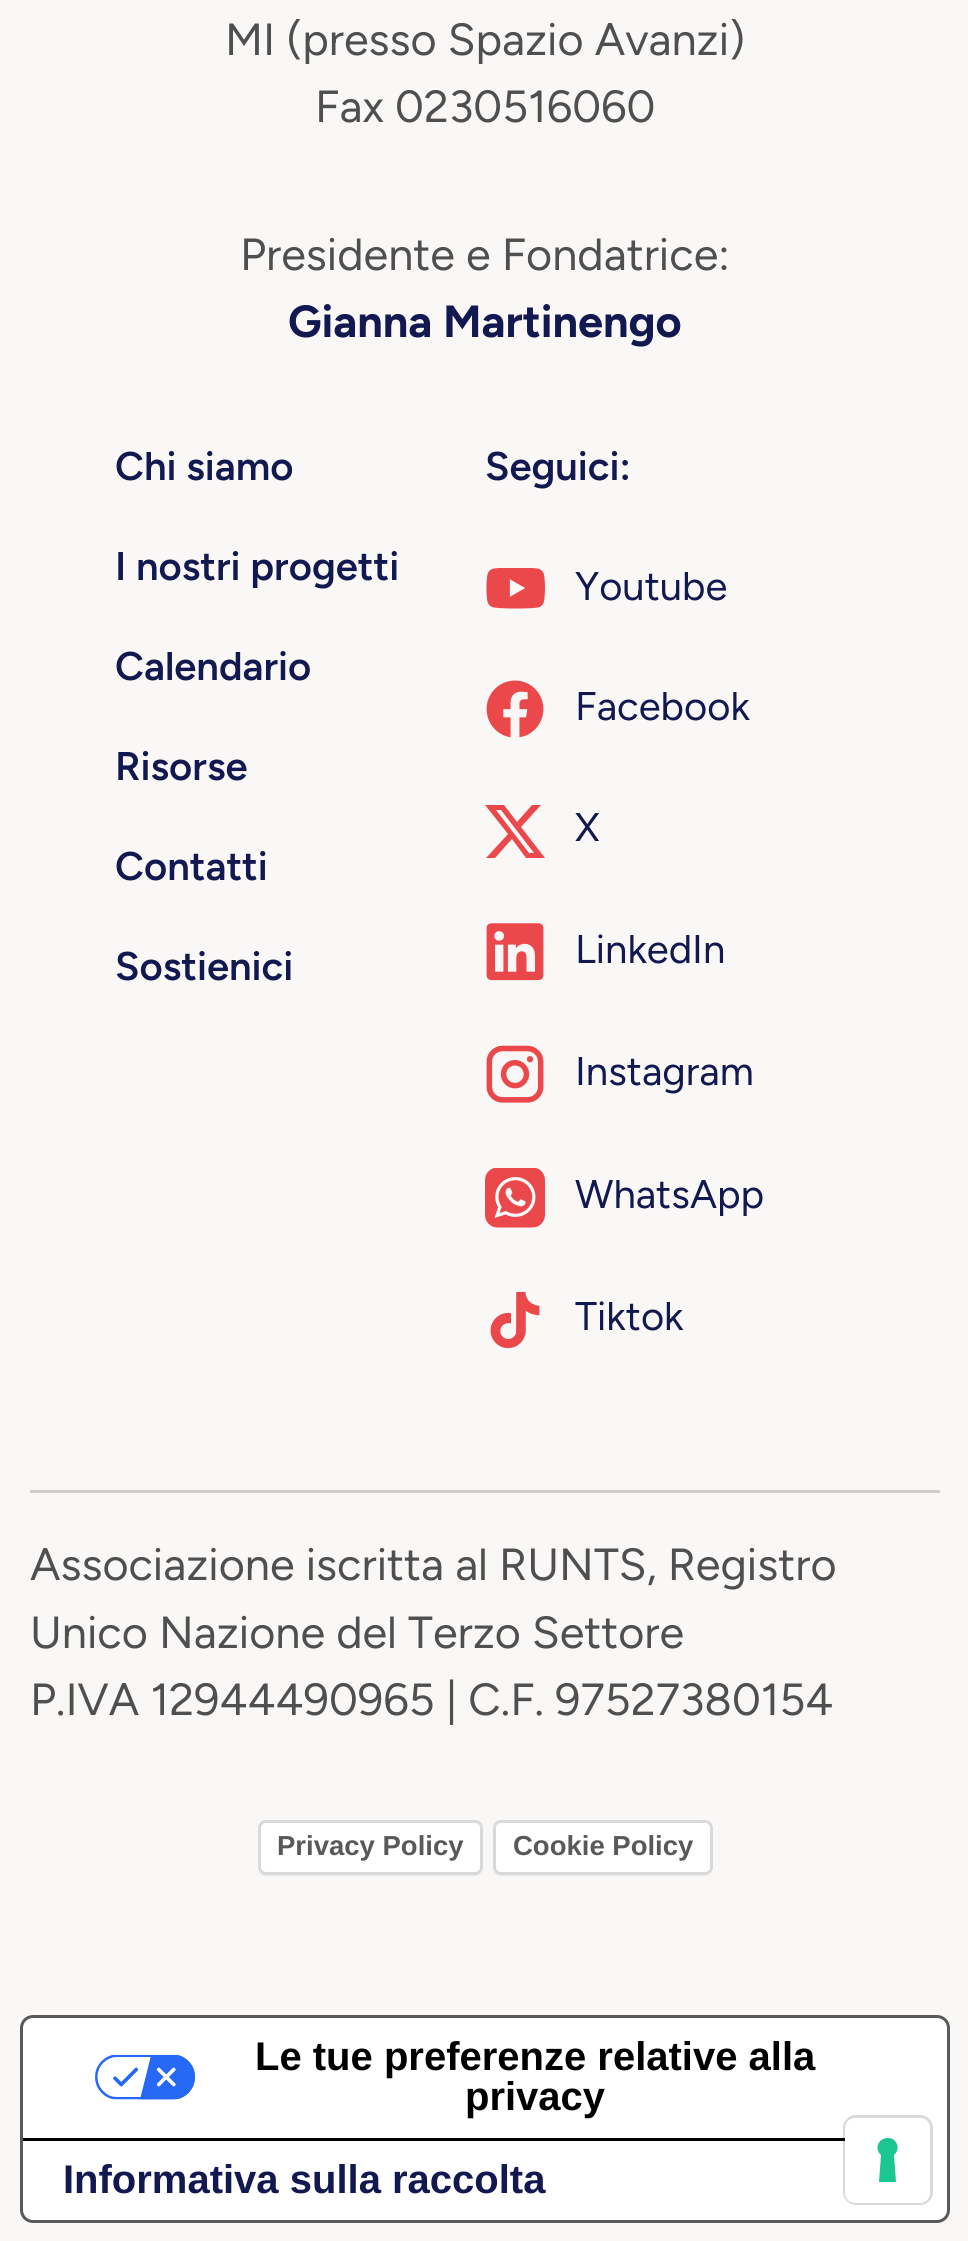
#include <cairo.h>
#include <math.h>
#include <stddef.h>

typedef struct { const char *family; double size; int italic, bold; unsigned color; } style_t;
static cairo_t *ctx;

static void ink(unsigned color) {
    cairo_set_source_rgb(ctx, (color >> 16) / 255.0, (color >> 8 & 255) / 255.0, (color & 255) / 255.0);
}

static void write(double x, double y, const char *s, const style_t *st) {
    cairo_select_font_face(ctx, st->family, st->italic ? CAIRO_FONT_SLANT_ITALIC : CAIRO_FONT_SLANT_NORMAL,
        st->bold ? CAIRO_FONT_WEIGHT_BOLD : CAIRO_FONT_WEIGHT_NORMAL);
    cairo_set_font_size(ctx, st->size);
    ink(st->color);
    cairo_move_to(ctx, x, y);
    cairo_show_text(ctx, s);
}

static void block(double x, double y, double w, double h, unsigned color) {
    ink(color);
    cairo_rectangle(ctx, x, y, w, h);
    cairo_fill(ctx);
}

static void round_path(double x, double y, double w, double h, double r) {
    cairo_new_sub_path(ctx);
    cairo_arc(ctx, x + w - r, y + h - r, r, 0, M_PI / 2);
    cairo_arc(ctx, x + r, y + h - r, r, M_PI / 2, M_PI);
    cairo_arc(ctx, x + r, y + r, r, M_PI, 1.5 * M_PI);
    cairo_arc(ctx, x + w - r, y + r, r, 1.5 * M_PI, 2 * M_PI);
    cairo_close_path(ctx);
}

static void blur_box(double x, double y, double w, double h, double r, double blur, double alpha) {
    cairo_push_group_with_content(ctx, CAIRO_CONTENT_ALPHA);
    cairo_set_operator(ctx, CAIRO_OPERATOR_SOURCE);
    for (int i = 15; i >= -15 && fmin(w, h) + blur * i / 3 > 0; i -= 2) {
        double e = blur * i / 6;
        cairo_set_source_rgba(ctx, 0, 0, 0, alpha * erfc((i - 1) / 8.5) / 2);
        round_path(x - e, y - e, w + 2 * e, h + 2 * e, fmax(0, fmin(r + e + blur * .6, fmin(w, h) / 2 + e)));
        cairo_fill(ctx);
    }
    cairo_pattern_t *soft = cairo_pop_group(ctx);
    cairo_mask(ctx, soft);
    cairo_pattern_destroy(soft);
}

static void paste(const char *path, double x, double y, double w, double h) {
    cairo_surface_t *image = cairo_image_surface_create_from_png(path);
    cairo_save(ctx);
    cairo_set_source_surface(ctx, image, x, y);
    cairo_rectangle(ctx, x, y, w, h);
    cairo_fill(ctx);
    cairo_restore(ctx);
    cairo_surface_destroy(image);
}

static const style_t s1 = {"Figtree Light", 45, 0, 0, 0x4f4f4f};
static const style_t s2 = {"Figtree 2 Light", 45, 0, 0, 0x121950};
static const style_t s3 = {"Figtree SemiBold", 40, 0, 0, 0x121950};
static const style_t s4 = {"Figtree Light", 40, 0, 0, 0x121950};
static const style_t s5 = {"Liberation Sans", 27.5, 0, 1, 0x595959};
static const style_t s6 = {"Liberation Sans", 40, 0, 1, 0x000000};
static const style_t s7 = {"Liberation Sans", 40, 0, 1, 0x121950};

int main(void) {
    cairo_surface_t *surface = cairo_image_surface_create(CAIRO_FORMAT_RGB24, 968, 2241);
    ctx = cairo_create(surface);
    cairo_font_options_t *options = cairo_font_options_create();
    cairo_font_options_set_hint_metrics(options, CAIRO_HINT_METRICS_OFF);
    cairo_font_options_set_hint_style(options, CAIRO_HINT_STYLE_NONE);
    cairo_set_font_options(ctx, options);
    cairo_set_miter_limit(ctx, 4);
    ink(0xfaf8f7);
    cairo_paint(ctx);
    write(225, 55, "MI (presso Spazio Avanzi)", &s1);
    write(315, 122, "Fax 0230516060", &s1);
    write(240, 270, "Presidente e Fondatrice:", &s1);
    write(288, 337, "Gianna Martinengo", &s2);
    write(115, 480, "Chi siamo", &s3);
    write(115, 580, "I nostri progetti", &s3);
    write(115, 680, "Calendario", &s3);
    write(115, 780, "Risorse", &s3);
    write(115, 880, "Contatti", &s3);
    write(115, 980, "Sostienici", &s3);
    write(485, 480, "Seguici:", &s3);
    paste("pic1.png", 486, 568, 59, 41);
    write(575, 600, "Youtube", &s4);
    paste("pic2.png", 486, 680, 58, 58);
    write(575, 720, "Facebook", &s4);
    write(575, 841, "X", &s4);
    ink(0xeb484b);
    cairo_new_path(ctx);
    cairo_move_to(ctx, 532, 805);
    cairo_line_to(ctx, 541, 805);
    cairo_line_to(ctx, 521, 827);
    cairo_line_to(ctx, 545, 858);
    cairo_line_to(ctx, 526, 858);
    cairo_line_to(ctx, 512, 839);
    cairo_line_to(ctx, 495, 858);
    cairo_line_to(ctx, 486, 858);
    cairo_line_to(ctx, 508, 834);
    cairo_line_to(ctx, 485, 805);
    cairo_line_to(ctx, 504, 805);
    cairo_line_to(ctx, 517, 822);
    cairo_close_path(ctx);
    cairo_move_to(ctx, 529, 853);
    cairo_line_to(ctx, 534, 853);
    cairo_line_to(ctx, 501, 810);
    cairo_line_to(ctx, 496, 810);
    cairo_close_path(ctx);
    cairo_fill(ctx);
    paste("pic3.png", 486, 923, 58, 58);
    write(575, 963, "LinkedIn", &s4);
    paste("pic4.png", 486, 1045, 58, 58);
    write(575, 1085, "Instagram", &s4);
    paste("pic5.png", 485, 1168, 60, 60);
    write(575, 1208, "WhatsApp", &s4);
    paste("pic6.png", 490, 1291, 50, 58);
    write(575, 1330, "Tiktok", &s4);
    block(30, 1490, 910, 3, 0xcfcecd);
    write(30, 1580, "Associazione iscritta al RUNTS, Registro", &s1);
    write(30, 1648, "Unico Nazione del Terzo Settore", &s1);
    write(30, 1715, "P.IVA 12944490965 | C.F. 97527380154", &s1);
    ink(0x000000);
    blur_box(260, 1825, 220, 50, 5, 1, 0.15);
    ink(0xffffff);
    round_path(258, 1820, 225, 55, 8);
    cairo_fill(ctx);
    round_path(259.5, 1821.5, 222, 52, 6.5);
    cairo_set_source_rgba(ctx, 0, 0, 0, 0.15);
    cairo_set_line_width(ctx, 3);
    cairo_stroke(ctx);
    write(277, 1855, "Privacy Policy", &s5);
    ink(0x000000);
    blur_box(495, 1825, 215, 50, 5, 1, 0.15);
    ink(0xffffff);
    round_path(493, 1820, 220, 55, 8);
    cairo_fill(ctx);
    round_path(494.5, 1821.5, 217, 52, 6.5);
    cairo_set_source_rgba(ctx, 0, 0, 0, 0.15);
    cairo_stroke(ctx);
    write(513, 1855, "Cookie Policy", &s5);
    ink(0xffffff);
    round_path(21.5, 2016.5, 927, 205, 11.5);
    cairo_fill_preserve(ctx);
    ink(0x595959);
    cairo_stroke(ctx);
    block(23, 2138, 822, 3, 0x000000);
    paste("pic7.png", 95, 2055, 100, 45);
    write(255, 2070, "Le tue preferenze relative alla", &s6);
    write(465, 2110, "privacy", &s6);
    write(63, 2193, "Informativa sulla raccolta", &s7);
    round_path(844.5, 2116.5, 87, 87, 11.5);
    cairo_set_source_rgba(ctx, 0, 0, 0, 0.15);
    cairo_stroke(ctx);
    ink(0xffffff);
    round_path(845, 2118, 85, 85, 10);
    cairo_fill(ctx);
    ink(0x1cc691);
    cairo_set_fill_rule(ctx, CAIRO_FILL_RULE_EVEN_ODD);
    cairo_new_path(ctx);
    cairo_move_to(ctx, 888, 2138);
    cairo_curve_to(ctx, 897, 2138, 901, 2149, 894, 2155);
    cairo_line_to(ctx, 896, 2182);
    cairo_line_to(ctx, 879, 2182);
    cairo_line_to(ctx, 881, 2155);
    cairo_curve_to(ctx, 874, 2149, 878, 2138, 888, 2138);
    cairo_close_path(ctx);
    cairo_fill(ctx);
    cairo_surface_write_to_png(surface, "screenshot.png");
    cairo_font_options_destroy(options);
    cairo_destroy(ctx);
    cairo_surface_destroy(surface);
    return 0;
}
